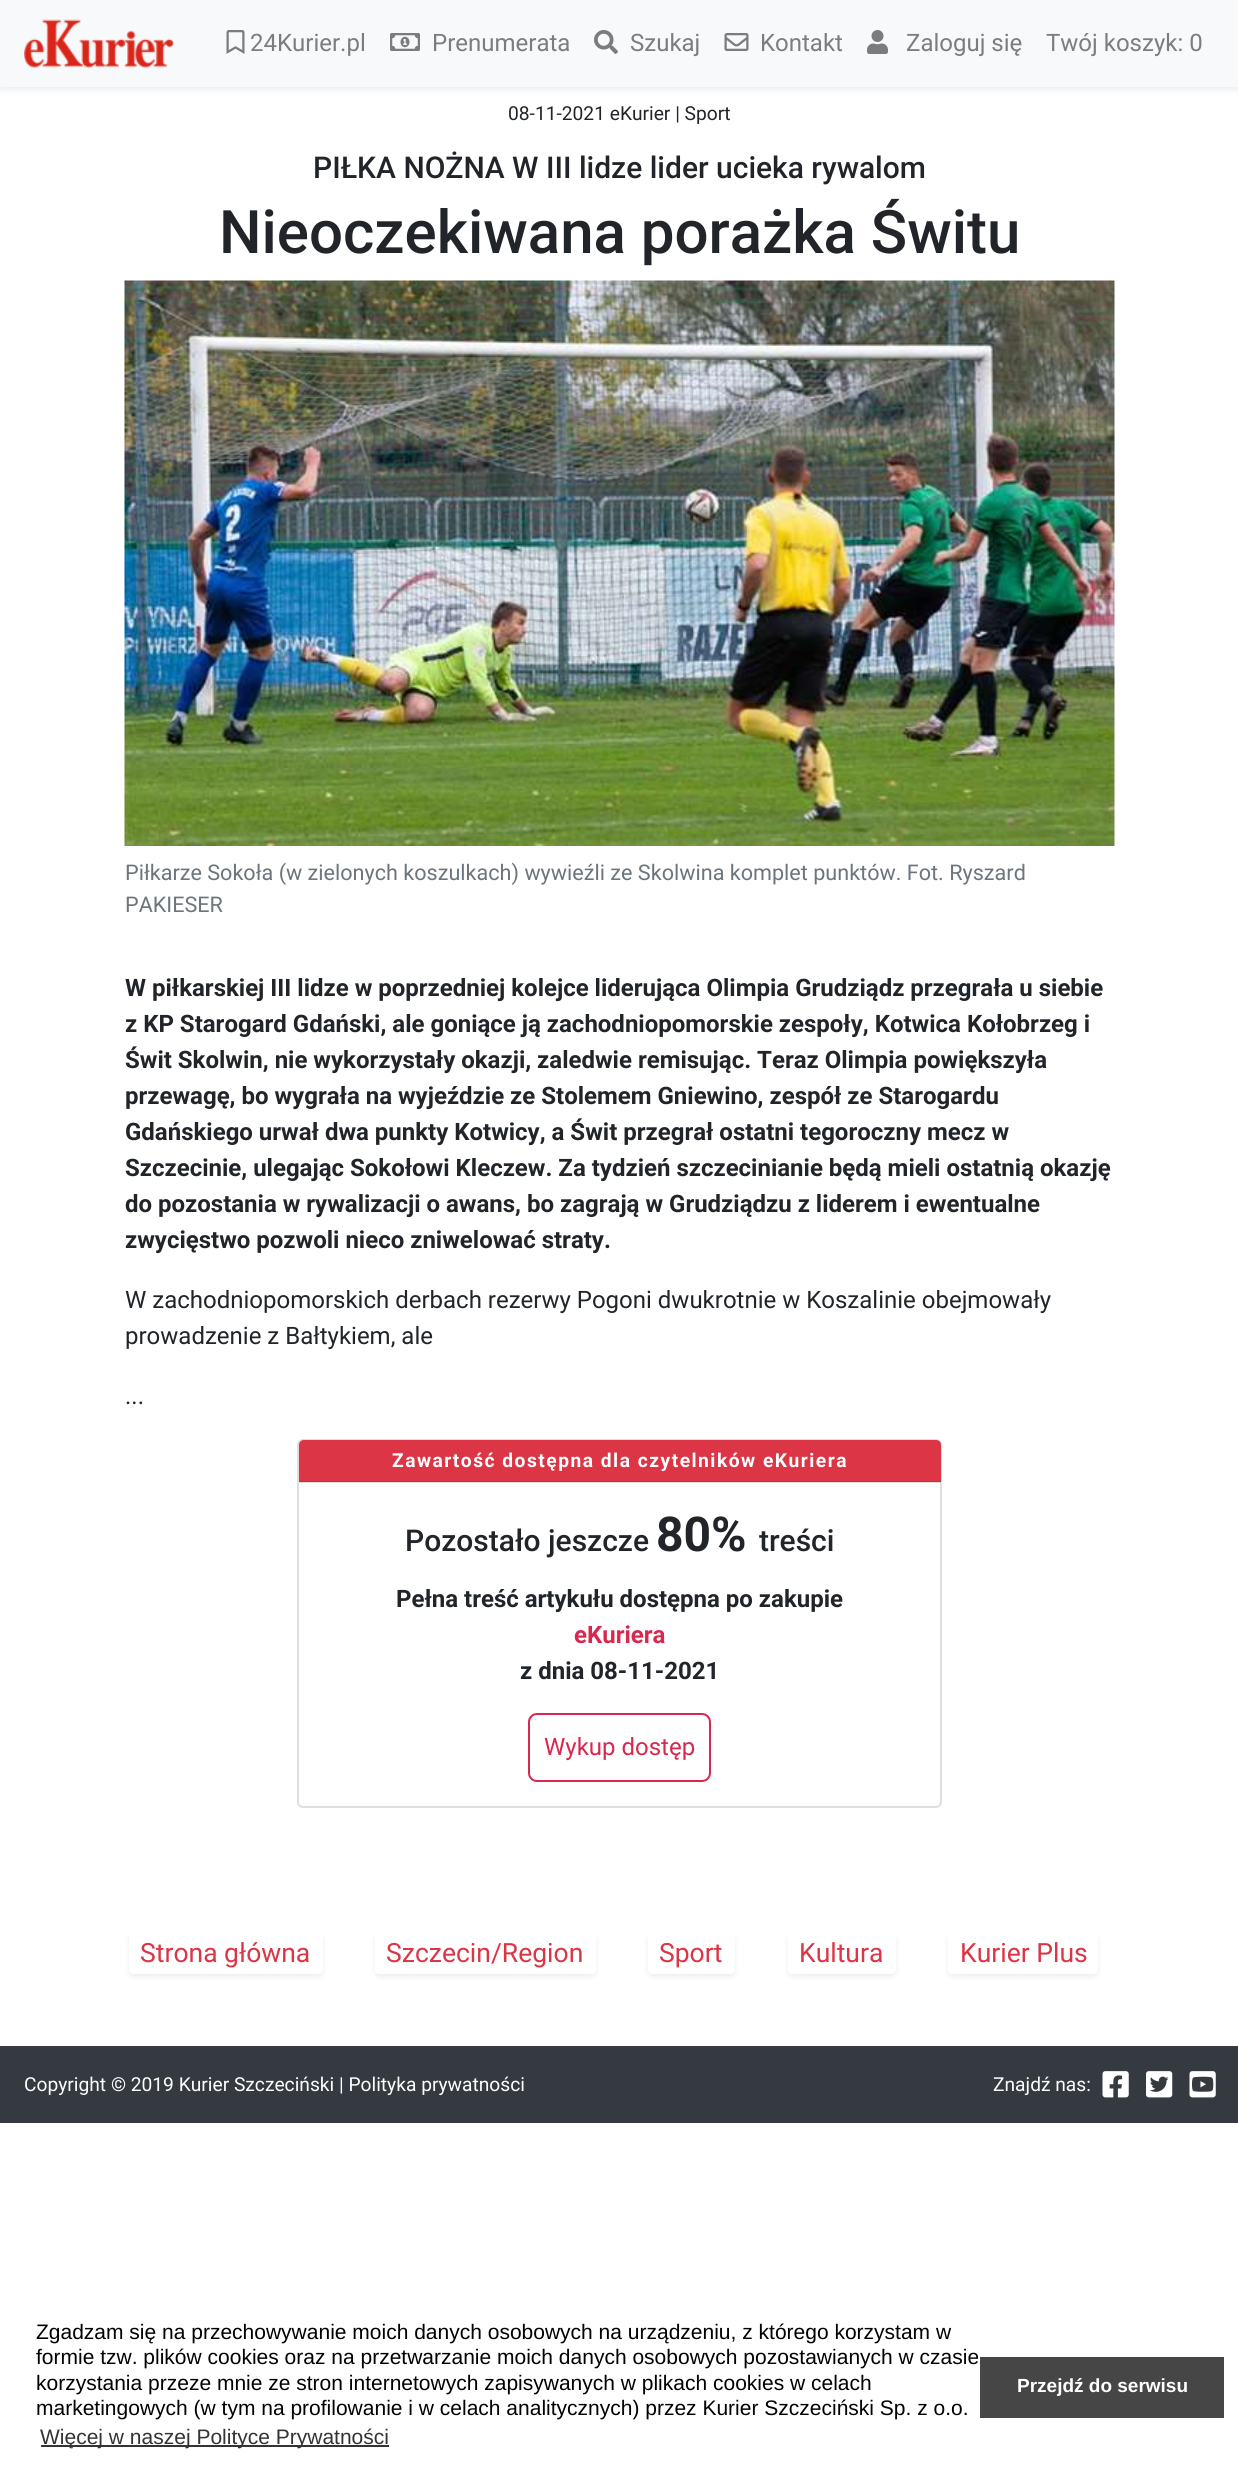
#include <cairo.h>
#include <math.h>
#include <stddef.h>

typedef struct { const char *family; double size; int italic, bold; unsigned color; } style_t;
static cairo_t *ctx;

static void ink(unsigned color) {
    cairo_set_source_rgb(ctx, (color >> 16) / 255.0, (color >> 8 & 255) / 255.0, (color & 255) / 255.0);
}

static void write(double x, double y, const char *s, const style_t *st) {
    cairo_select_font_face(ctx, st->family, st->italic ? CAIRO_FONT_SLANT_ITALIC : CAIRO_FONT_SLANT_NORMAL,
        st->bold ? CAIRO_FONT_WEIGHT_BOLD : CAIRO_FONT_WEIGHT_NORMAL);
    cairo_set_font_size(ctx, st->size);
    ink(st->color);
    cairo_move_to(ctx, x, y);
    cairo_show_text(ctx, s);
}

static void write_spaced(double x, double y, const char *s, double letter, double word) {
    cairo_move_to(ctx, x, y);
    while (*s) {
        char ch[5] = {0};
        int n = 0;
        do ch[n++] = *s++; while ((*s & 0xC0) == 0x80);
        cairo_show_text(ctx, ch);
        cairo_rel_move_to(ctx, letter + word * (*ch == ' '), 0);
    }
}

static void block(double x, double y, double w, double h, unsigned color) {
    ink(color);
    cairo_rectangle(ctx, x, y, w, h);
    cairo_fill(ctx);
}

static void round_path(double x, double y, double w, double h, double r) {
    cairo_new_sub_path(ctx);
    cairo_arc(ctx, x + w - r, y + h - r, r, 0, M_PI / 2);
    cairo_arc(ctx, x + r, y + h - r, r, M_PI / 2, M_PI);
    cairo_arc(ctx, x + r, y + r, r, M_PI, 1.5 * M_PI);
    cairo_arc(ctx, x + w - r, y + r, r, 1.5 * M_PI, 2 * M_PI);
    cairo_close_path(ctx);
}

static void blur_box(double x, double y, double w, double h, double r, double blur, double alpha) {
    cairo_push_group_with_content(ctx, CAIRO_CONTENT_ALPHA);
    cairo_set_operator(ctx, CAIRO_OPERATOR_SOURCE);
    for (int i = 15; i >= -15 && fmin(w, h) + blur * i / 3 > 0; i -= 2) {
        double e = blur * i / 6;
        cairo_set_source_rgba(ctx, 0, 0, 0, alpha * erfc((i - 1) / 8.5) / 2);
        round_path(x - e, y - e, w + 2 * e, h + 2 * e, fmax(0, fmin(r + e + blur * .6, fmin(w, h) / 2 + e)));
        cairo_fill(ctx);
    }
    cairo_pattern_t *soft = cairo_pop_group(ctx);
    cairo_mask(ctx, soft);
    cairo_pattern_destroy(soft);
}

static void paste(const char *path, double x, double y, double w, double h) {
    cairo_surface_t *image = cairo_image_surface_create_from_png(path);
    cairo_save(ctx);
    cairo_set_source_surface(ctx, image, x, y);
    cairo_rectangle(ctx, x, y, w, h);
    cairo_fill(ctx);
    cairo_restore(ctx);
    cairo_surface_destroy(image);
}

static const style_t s1 = {"Roboto", 24, 0, 0, 0x7c7d7d};
static const style_t s2 = {"Roboto", 19.2, 0, 0, 0x212529};
static const style_t s3 = {"Roboto Medium", 30, 0, 0, 0x212529};
static const style_t s4 = {"Roboto Medium", 60, 0, 0, 0x212529};
static const style_t s5 = {"Roboto", 21.6, 0, 0, 0x6c757d};
static const style_t s6 = {"Roboto", 24, 0, 1, 0x212529};
static const style_t s7 = {"Roboto", 24, 0, 0, 0x212529};
static const style_t s8 = {"Roboto", 48, 0, 1, 0x212529};
static const style_t s9 = {"Roboto", 24, 0, 1, 0xd9274e};
static const style_t s10 = {"Roboto", 24, 0, 0, 0xd9274e};
static const style_t s11 = {"Roboto", 26.5, 0, 0, 0xdc3545};
static const style_t s12 = {"Roboto", 19.2, 0, 0, 0xffffff};
static const style_t s13 = {"Liberation Sans", 21, 0, 0, 0x000000};
static const style_t s14 = {"Liberation Sans", 21, 0, 0, 0x333333};
static const style_t s15 = {"Liberation Sans", 19, 0, 1, 0xffffff};

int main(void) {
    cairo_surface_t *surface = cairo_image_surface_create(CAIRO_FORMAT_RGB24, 1238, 2468);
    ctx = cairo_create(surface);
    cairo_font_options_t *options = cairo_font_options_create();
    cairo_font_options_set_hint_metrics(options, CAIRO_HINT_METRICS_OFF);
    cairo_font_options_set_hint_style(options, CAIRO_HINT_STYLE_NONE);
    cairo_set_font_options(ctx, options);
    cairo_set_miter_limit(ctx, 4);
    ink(0xffffff);
    cairo_paint(ctx);
    ink(0x000000);
    blur_box(0, 3, 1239, 87, 0, 3, 0.07);
    block(0, 0, 1238, 87, 0xf8f9fa);
    paste("pic1.png", 24, 19, 150, 49);
    paste("pic2.png", 226, 30, 19, 24);
    write(250, 51, "24Kurier.pl", &s1);
    paste("pic3.png", 390, 33, 30, 18);
    write(432, 51, "Prenumerata", &s1);
    paste("pic4.png", 594, 30, 24, 24);
    write(630, 51, "Szukaj", &s1);
    paste("pic5.png", 724, 33, 25, 18);
    write(760, 51, "Kontakt", &s1);
    paste("pic6.png", 867, 30, 21, 24);
    write(906, 51, "Zaloguj się", &s1);
    write(1046, 51, "Twój koszyk: 0", &s1);
    write(508, 120, "08-11-2021 eKurier | Sport", &s2);
    write(313, 178, "PIŁKA NOŻNA W III lidze lider ucieka rywalom", &s3);
    write(219, 253, "Nieoczekiwana porażka Świtu", &s4);
    paste("pic7.png", 124, 280, 991, 566);
    write(125, 880, "Piłkarze Sokoła (w zielonych koszulkach) wywieźli ze Skolwina komplet punktów. Fot. Ryszard", &s5);
    write(125, 912, "PAKIESER", &s5);
    write(125, 996, "W piłkarskiej III lidze w poprzedniej kolejce liderująca Olimpia Grudziądz przegrała u siebie", &s6);
    write(125, 1032, "z KP Starogard Gdański, ale goniące ją zachodniopomorskie zespoły, Kotwica Kołobrzeg i", &s6);
    write(125, 1068, "Świt Skolwin, nie wykorzystały okazji, zaledwie remisując. Teraz Olimpia powiększyła", &s6);
    write(125, 1104, "przewagę, bo wygrała na wyjeździe ze Stolemem Gniewino, zespół ze Starogardu", &s6);
    write(125, 1140, "Gdańskiego urwał dwa punkty Kotwicy, a Świt przegrał ostatni tegoroczny mecz w", &s6);
    write(125, 1176, "Szczecinie, ulegając Sokołowi Kleczew. Za tydzień szczecinianie będą mieli ostatnią okazję", &s6);
    write(125, 1212, "do pozostania w rywalizacji o awans, bo zagrają w Grudziądzu z liderem i ewentualne", &s6);
    write(125, 1248, "zwycięstwo pozwoli nieco zniwelować straty.", &s6);
    write(125, 1308, "W zachodniopomorskich derbach rezerwy Pogoni dwukrotnie w Koszalinie obejmowały", &s7);
    write(125, 1344, "prowadzenie z Bałtykiem, ale", &s7);
    write(125, 1404, "...", &s7);
    round_path(298, 1440, 643, 367, 5);
    ink(0xdfdfdf);
    cairo_stroke(ctx);
    ink(0xdc3545);
    cairo_new_path(ctx);
    cairo_move_to(ctx, 304, 1440);
    cairo_line_to(ctx, 936, 1440);
    cairo_curve_to(ctx, 939, 1440, 941, 1442, 941, 1445);
    cairo_line_to(ctx, 941, 1482);
    cairo_line_to(ctx, 299, 1482);
    cairo_line_to(ctx, 299, 1445);
    cairo_curve_to(ctx, 299, 1442, 301, 1440, 304, 1440);
    cairo_close_path(ctx);
    cairo_fill(ctx);
    cairo_set_source_rgba(ctx, 0, 0, 0, 0.12);
    cairo_rectangle(ctx, 299, 1481, 642, 2);
    cairo_fill(ctx);
    cairo_select_font_face(ctx, "Roboto", CAIRO_FONT_SLANT_NORMAL, CAIRO_FONT_WEIGHT_BOLD);
    cairo_set_font_size(ctx, 19.2);
    ink(0xffffff);
    write_spaced(392, 1467, "Zawartość dostępna dla czytelników eKuriera", 1.5, 0);
    write(405, 1551, "Pozostało jeszcze", &s3);
    write(656, 1551, "80%", &s8);
    write(759, 1551, "treści", &s3);
    write(396, 1607, "Pełna treść artykułu dostępna po zakupie", &s6);
    write(574, 1643, "eKuriera", &s9);
    write(520, 1679, "z dnia 08-11-2021", &s6);
    round_path(529, 1714, 181, 67, 8);
    ink(0xd9274e);
    cairo_stroke(ctx);
    write(544, 1755, "Wykup dostęp", &s10);
    cairo_save(ctx);
    cairo_set_fill_rule(ctx, CAIRO_FILL_RULE_EVEN_ODD);
    cairo_new_path(ctx);
    cairo_move_to(ctx, 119, 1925);
    cairo_line_to(ctx, 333, 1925);
    cairo_line_to(ctx, 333, 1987);
    cairo_line_to(ctx, 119, 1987);
    cairo_close_path(ctx);
    cairo_move_to(ctx, 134, 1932);
    cairo_line_to(ctx, 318, 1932);
    cairo_curve_to(ctx, 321, 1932, 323, 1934, 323, 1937);
    cairo_line_to(ctx, 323, 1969);
    cairo_curve_to(ctx, 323, 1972, 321, 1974, 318, 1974);
    cairo_line_to(ctx, 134, 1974);
    cairo_curve_to(ctx, 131, 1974, 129, 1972, 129, 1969);
    cairo_line_to(ctx, 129, 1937);
    cairo_curve_to(ctx, 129, 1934, 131, 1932, 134, 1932);
    cairo_close_path(ctx);
    cairo_clip(ctx);
    ink(0x000000);
    blur_box(129, 1935, 194, 42, 5, 3, 0.07);
    cairo_restore(ctx);
    write(140, 1962, "Strona główna", &s11);
    cairo_save(ctx);
    cairo_set_fill_rule(ctx, CAIRO_FILL_RULE_EVEN_ODD);
    cairo_new_path(ctx);
    cairo_move_to(ctx, 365, 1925);
    cairo_line_to(ctx, 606, 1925);
    cairo_line_to(ctx, 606, 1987);
    cairo_line_to(ctx, 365, 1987);
    cairo_close_path(ctx);
    cairo_move_to(ctx, 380, 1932);
    cairo_line_to(ctx, 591, 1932);
    cairo_curve_to(ctx, 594, 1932, 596, 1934, 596, 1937);
    cairo_line_to(ctx, 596, 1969);
    cairo_curve_to(ctx, 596, 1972, 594, 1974, 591, 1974);
    cairo_line_to(ctx, 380, 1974);
    cairo_curve_to(ctx, 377, 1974, 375, 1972, 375, 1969);
    cairo_line_to(ctx, 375, 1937);
    cairo_curve_to(ctx, 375, 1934, 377, 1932, 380, 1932);
    cairo_close_path(ctx);
    cairo_clip(ctx);
    ink(0x000000);
    blur_box(375, 1935, 221, 42, 5, 3, 0.07);
    cairo_restore(ctx);
    write(386, 1962, "Szczecin/Region", &s11);
    cairo_save(ctx);
    cairo_set_fill_rule(ctx, CAIRO_FILL_RULE_EVEN_ODD);
    cairo_new_path(ctx);
    cairo_move_to(ctx, 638, 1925);
    cairo_line_to(ctx, 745, 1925);
    cairo_line_to(ctx, 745, 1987);
    cairo_line_to(ctx, 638, 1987);
    cairo_close_path(ctx);
    cairo_move_to(ctx, 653, 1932);
    cairo_line_to(ctx, 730, 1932);
    cairo_curve_to(ctx, 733, 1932, 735, 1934, 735, 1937);
    cairo_line_to(ctx, 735, 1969);
    cairo_curve_to(ctx, 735, 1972, 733, 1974, 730, 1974);
    cairo_line_to(ctx, 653, 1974);
    cairo_curve_to(ctx, 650, 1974, 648, 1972, 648, 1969);
    cairo_line_to(ctx, 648, 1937);
    cairo_curve_to(ctx, 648, 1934, 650, 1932, 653, 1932);
    cairo_close_path(ctx);
    cairo_clip(ctx);
    ink(0x000000);
    blur_box(648, 1935, 87, 42, 5, 3, 0.07);
    cairo_restore(ctx);
    write(659, 1962, "Sport", &s11);
    cairo_save(ctx);
    cairo_set_fill_rule(ctx, CAIRO_FILL_RULE_EVEN_ODD);
    cairo_new_path(ctx);
    cairo_move_to(ctx, 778, 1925);
    cairo_line_to(ctx, 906, 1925);
    cairo_line_to(ctx, 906, 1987);
    cairo_line_to(ctx, 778, 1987);
    cairo_close_path(ctx);
    cairo_move_to(ctx, 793, 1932);
    cairo_line_to(ctx, 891, 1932);
    cairo_curve_to(ctx, 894, 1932, 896, 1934, 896, 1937);
    cairo_line_to(ctx, 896, 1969);
    cairo_curve_to(ctx, 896, 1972, 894, 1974, 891, 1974);
    cairo_line_to(ctx, 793, 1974);
    cairo_curve_to(ctx, 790, 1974, 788, 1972, 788, 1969);
    cairo_line_to(ctx, 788, 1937);
    cairo_curve_to(ctx, 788, 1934, 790, 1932, 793, 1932);
    cairo_close_path(ctx);
    cairo_clip(ctx);
    ink(0x000000);
    blur_box(788, 1935, 108, 42, 5, 3, 0.07);
    cairo_restore(ctx);
    write(799, 1962, "Kultura", &s11);
    cairo_save(ctx);
    cairo_set_fill_rule(ctx, CAIRO_FILL_RULE_EVEN_ODD);
    cairo_new_path(ctx);
    cairo_move_to(ctx, 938, 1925);
    cairo_line_to(ctx, 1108, 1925);
    cairo_line_to(ctx, 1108, 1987);
    cairo_line_to(ctx, 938, 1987);
    cairo_close_path(ctx);
    cairo_move_to(ctx, 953, 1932);
    cairo_line_to(ctx, 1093, 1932);
    cairo_curve_to(ctx, 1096, 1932, 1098, 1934, 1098, 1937);
    cairo_line_to(ctx, 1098, 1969);
    cairo_curve_to(ctx, 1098, 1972, 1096, 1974, 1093, 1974);
    cairo_line_to(ctx, 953, 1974);
    cairo_curve_to(ctx, 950, 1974, 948, 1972, 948, 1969);
    cairo_line_to(ctx, 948, 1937);
    cairo_curve_to(ctx, 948, 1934, 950, 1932, 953, 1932);
    cairo_close_path(ctx);
    cairo_clip(ctx);
    ink(0x000000);
    blur_box(948, 1935, 150, 42, 5, 3, 0.07);
    cairo_restore(ctx);
    write(960, 1962, "Kurier Plus", &s11);
    block(0, 2046, 1238, 77, 0x343a40);
    write(24, 2091, "Copyright © 2019 Kurier Szczeciński | Polityka prywatności", &s12);
    write(993, 2091, "Znajdź nas:", &s12);
    paste("pic8.png", 1102, 2071, 27, 27);
    paste("pic9.png", 1146, 2071, 27, 27);
    paste("pic10.png", 1189, 2071, 27, 27);
    write(36, 2339, "Zgadzam się na przechowywanie moich danych osobowych na urządzeniu, z którego korzystam w", &s13);
    write(36, 2364, "formie tzw. plików cookies oraz na przetwarzanie moich danych osobowych pozostawianych w czasie", &s13);
    write(36, 2390, "korzystania przeze mnie ze stron internetowych zapisywanych w plikach cookies w celach", &s13);
    write(36, 2415, "marketingowych (w tym na profilowanie i w celach analitycznych) przez Kurier Szczeciński Sp. z o.o.", &s13);
    block(41, 2445, 348, 2, 0x333333);
    write(40, 2444, "Więcej w naszej Polityce Prywatności", &s14);
    block(980, 2357, 244, 61, 0x464646);
    write(1017, 2392, "Przejdź do serwisu", &s15);
    cairo_surface_write_to_png(surface, "screenshot.png");
    cairo_font_options_destroy(options);
    cairo_destroy(ctx);
    cairo_surface_destroy(surface);
    return 0;
}
